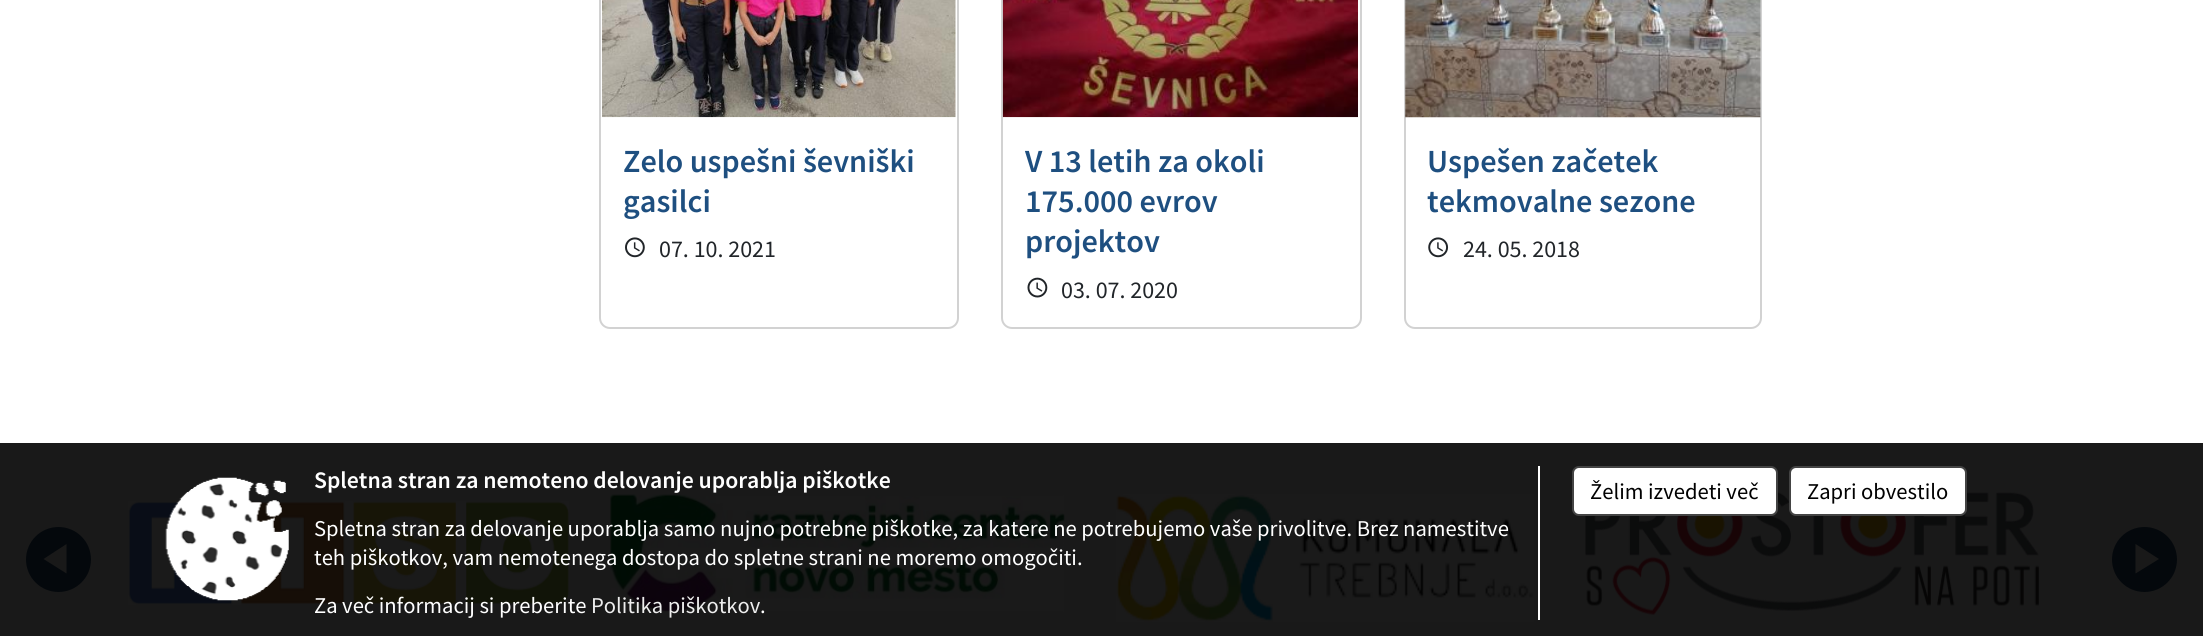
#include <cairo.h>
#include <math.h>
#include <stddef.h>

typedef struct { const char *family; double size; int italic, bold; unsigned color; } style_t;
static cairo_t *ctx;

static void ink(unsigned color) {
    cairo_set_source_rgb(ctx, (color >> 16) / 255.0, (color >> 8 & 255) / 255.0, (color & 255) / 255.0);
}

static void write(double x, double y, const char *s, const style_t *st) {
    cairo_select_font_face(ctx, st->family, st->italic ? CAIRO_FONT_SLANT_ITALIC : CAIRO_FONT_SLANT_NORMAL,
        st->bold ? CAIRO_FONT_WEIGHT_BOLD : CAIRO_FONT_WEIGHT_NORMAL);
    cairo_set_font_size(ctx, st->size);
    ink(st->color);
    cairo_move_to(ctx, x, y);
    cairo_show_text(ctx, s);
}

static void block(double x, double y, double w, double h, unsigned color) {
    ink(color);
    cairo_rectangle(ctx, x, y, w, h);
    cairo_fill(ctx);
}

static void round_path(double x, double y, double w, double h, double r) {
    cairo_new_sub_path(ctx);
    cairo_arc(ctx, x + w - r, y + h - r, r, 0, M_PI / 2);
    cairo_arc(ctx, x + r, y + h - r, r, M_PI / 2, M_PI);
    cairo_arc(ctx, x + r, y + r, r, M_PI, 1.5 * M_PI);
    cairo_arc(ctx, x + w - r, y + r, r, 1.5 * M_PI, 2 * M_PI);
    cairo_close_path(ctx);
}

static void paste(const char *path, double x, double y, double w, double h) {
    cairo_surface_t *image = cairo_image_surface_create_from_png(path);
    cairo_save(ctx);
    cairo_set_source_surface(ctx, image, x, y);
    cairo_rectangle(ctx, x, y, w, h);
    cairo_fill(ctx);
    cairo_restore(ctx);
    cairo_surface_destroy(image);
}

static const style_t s1 = {"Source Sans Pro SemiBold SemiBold", 32.25, 0, 0, 0x1e4f80};
static const style_t s2 = {"Source Sans Pro", 24, 0, 0, 0x212529};
static const style_t s3 = {"Source Sans Pro SemiBold SemiBold", 23.75, 0, 0, 0xffffff};
static const style_t s4 = {"Source Sans Pro", 22.6, 0, 0, 0xffffff};
static const style_t s5 = {"Source Sans Pro", 22.6, 0, 0, 0xeeeeee};
static const style_t s6 = {"Source Sans Pro", 22.6, 0, 0, 0x000000};

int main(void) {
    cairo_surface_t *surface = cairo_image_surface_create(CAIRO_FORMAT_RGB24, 2203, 636);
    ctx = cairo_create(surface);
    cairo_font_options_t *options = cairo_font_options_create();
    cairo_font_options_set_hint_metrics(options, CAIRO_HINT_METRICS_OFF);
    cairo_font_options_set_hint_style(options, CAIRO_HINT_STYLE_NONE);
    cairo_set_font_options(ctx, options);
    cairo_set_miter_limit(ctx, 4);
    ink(0xffffff);
    cairo_paint(ctx);
    block(0, 443, 2203, 193, 0x191919);
    round_path(600, -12, 358, 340, 10);
    ink(0xd2d2d2);
    cairo_stroke(ctx);
    paste("pic1.png", 602, 0, 354, 118);
    write(623, 172, "Zelo uspešni ševniški", &s1);
    write(623, 212, "gasilci", &s1);
    paste("pic2.png", 625, 237, 20, 21);
    write(659, 257, "07. 10. 2021", &s2);
    round_path(1002, -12, 359, 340, 10);
    ink(0xd2d2d2);
    cairo_stroke(ctx);
    paste("pic3.png", 1002, 0, 356, 118);
    write(1025, 172, "V 13 letih za okoli", &s1);
    write(1025, 212, "175.000 evrov", &s1);
    write(1025, 252, "projektov", &s1);
    paste("pic4.png", 1027, 277, 21, 21);
    write(1061, 298, "03. 07. 2020", &s2);
    round_path(1405, -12, 356, 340, 10);
    ink(0xd2d2d2);
    cairo_stroke(ctx);
    paste("pic5.png", 1405, 0, 356, 118);
    write(1427, 172, "Uspešen začetek", &s1);
    write(1427, 212, "tekmovalne sezone", &s1);
    paste("pic6.png", 1428, 237, 21, 21);
    write(1463, 257, "24. 05. 2018", &s2);
    paste("pic8.png", 128, 501, 441, 104);
    paste("pic7.png", 165, 477, 124, 124);
    block(1538, 466, 2, 154, 0xffffff);
    write(314, 488, "Spletna stran za nemoteno delovanje uporablja piškotke", &s3);
    paste("pic9.png", 610, 494, 455, 118);
    paste("pic10.png", 1116, 494, 418, 128);
    write(314, 536, "Spletna stran za delovanje uporablja samo nujno potrebne piškotke, za katere ne potrebujemo vaše privolitve. Brez namestitve", &s4);
    write(314, 565, "teh piškotkov, vam nemotenega dostopa do spletne strani ne moremo omogočiti.", &s4);
    write(314, 613, "Za več informacij si preberite", &s4);
    write(591, 613, "Politika piškotkov", &s5);
    write(760, 613, ".", &s4);
    paste("pic11.png", 1585, 491, 454, 124);
    round_path(1573, 467, 204, 48, 6);
    cairo_fill_preserve(ctx);
    ink(0x444444);
    cairo_stroke(ctx);
    write(1590, 499, "Želim izvedeti več", &s6);
    ink(0xffffff);
    round_path(1790, 467, 176, 48, 6);
    cairo_fill_preserve(ctx);
    ink(0x444444);
    cairo_stroke(ctx);
    write(1807, 499, "Zapri obvestilo", &s6);
    ink(0x04080c);
    cairo_new_path(ctx);
    cairo_arc(ctx, 58.5, 559.5, 32.5, 0, 2 * M_PI);
    cairo_fill(ctx);
    ink(0x191919);
    cairo_new_path(ctx);
    cairo_move_to(ctx, 66.5, 573.5);
    cairo_line_to(ctx, 43.5, 559);
    cairo_line_to(ctx, 66.5, 544);
    cairo_close_path(ctx);
    cairo_fill(ctx);
    ink(0x04080c);
    cairo_arc(ctx, 2144.5, 559.5, 32.5, 0, 2 * M_PI);
    cairo_fill(ctx);
    ink(0x191919);
    cairo_new_path(ctx);
    cairo_move_to(ctx, 2135.5, 544);
    cairo_line_to(ctx, 2159, 559);
    cairo_line_to(ctx, 2135.5, 573.5);
    cairo_close_path(ctx);
    cairo_fill(ctx);
    cairo_surface_write_to_png(surface, "screenshot.png");
    cairo_font_options_destroy(options);
    cairo_destroy(ctx);
    cairo_surface_destroy(surface);
    return 0;
}
